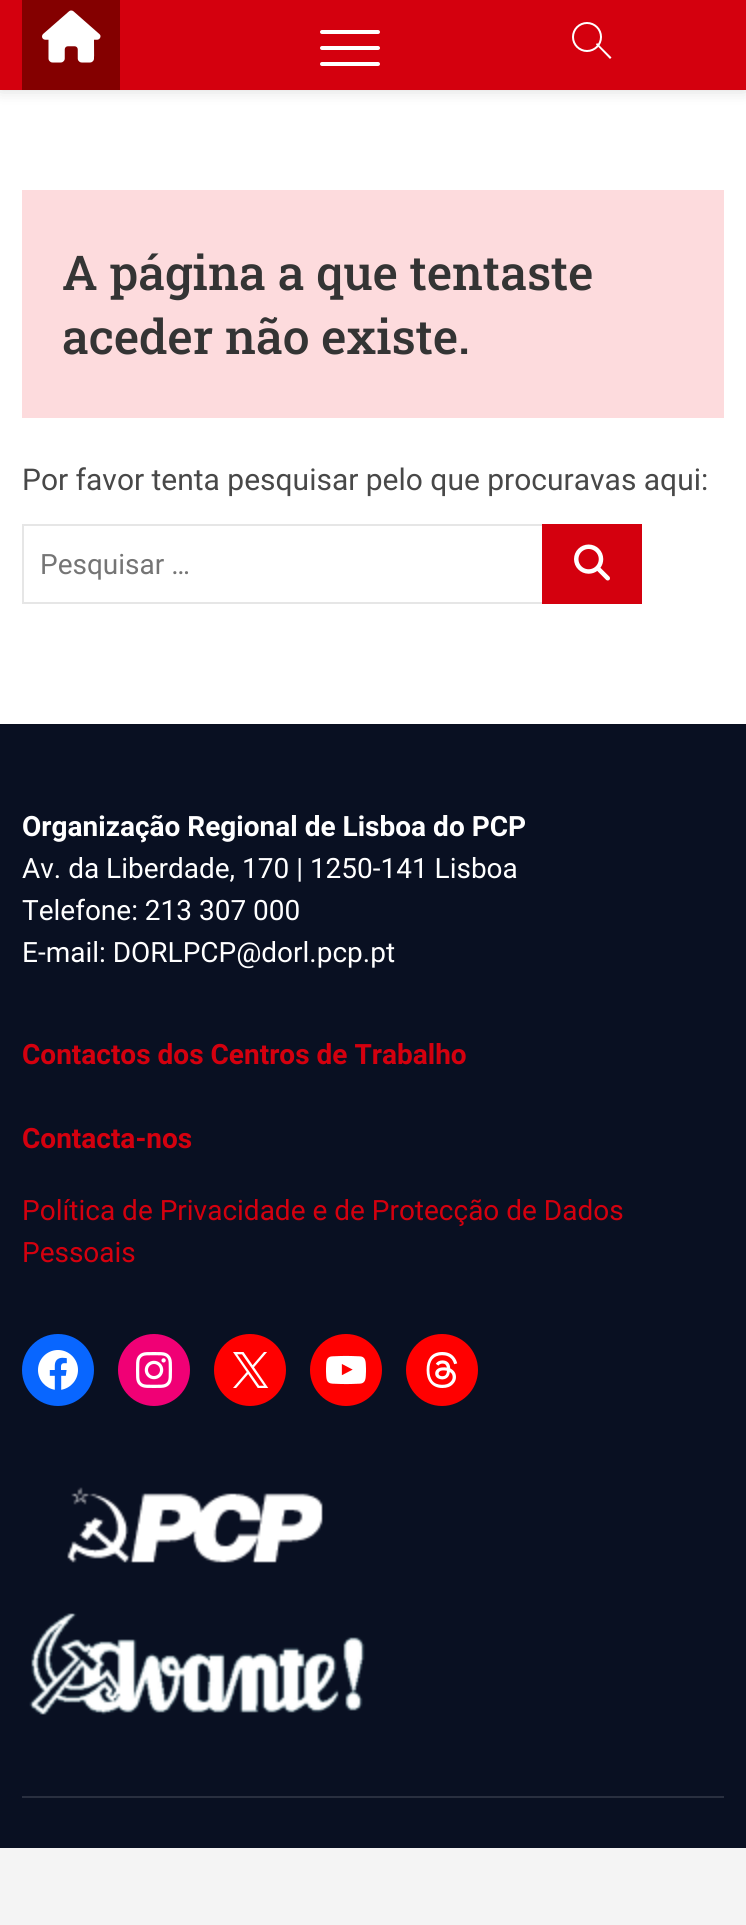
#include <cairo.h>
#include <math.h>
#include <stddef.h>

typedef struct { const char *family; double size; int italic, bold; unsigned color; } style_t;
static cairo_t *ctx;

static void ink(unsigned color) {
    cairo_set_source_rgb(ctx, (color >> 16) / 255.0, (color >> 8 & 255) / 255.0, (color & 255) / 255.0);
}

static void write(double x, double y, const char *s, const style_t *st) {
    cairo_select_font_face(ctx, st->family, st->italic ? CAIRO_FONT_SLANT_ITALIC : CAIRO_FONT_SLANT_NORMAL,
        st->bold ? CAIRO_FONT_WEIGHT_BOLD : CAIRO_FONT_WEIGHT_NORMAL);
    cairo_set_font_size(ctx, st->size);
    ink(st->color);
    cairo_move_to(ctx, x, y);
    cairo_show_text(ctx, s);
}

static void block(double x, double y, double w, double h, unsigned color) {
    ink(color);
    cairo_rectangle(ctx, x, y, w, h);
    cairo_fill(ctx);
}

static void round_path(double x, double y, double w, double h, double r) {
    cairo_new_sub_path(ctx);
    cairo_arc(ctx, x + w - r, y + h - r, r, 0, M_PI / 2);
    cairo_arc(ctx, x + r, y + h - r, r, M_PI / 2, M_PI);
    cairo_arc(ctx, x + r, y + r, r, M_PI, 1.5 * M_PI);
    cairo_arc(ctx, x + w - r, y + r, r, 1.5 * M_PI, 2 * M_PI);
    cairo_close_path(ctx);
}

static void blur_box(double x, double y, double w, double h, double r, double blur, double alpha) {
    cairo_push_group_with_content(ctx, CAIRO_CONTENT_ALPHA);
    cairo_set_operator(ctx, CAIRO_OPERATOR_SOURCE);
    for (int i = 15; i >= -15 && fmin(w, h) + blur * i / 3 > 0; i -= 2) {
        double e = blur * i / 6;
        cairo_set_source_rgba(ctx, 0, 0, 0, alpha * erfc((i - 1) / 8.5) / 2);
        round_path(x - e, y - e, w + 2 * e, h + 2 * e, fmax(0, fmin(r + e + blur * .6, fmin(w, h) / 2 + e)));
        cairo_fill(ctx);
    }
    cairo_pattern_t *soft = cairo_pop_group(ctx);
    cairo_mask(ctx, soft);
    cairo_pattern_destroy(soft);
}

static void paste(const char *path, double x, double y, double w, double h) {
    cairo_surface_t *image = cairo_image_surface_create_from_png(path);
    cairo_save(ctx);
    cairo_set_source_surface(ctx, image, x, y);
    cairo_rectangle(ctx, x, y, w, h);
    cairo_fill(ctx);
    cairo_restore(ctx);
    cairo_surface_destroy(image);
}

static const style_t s1 = {"Roboto Slab Medium", 48, 0, 0, 0x343434};
static const style_t s2 = {"Roboto", 30, 0, 0, 0x484848};
static const style_t s3 = {"Roboto", 28, 0, 0, 0x757575};
static const style_t s4 = {"Roboto", 28, 0, 1, 0xffffff};
static const style_t s5 = {"Roboto", 28, 0, 0, 0xffffff};
static const style_t s6 = {"Roboto", 28, 0, 1, 0xd4000e};
static const style_t s7 = {"Roboto", 28, 0, 0, 0xd4000e};

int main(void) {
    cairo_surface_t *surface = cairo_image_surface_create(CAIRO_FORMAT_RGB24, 746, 1925);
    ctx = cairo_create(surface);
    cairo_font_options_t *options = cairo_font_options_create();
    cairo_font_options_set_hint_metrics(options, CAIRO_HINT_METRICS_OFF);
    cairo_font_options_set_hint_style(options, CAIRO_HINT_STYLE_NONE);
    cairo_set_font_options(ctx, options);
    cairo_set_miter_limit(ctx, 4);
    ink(0xf4f4f4);
    cairo_paint(ctx);
    block(0, 90, 746, 634, 0xffffff);
    ink(0x000000);
    blur_box(0, 0, 746, 90, 0, 8, 0.15);
    block(0, 0, 746, 90, 0xd4000e);
    block(22, 0, 98, 90, 0x840000);
    paste("pic1.png", 42, 10, 59, 53);
    ink(0xffffff);
    round_path(320, 46, 60, 4, 2);
    cairo_fill(ctx);
    round_path(320, 30, 60, 4, 2);
    cairo_fill(ctx);
    round_path(320, 62, 60, 4, 2);
    cairo_fill(ctx);
    cairo_arc(ctx, 587, 37, 14, 0, 2 * M_PI);
    cairo_stroke(ctx);
    cairo_new_path(ctx);
    cairo_move_to(ctx, 596, 44.5);
    cairo_line_to(ctx, 597, 43);
    cairo_line_to(ctx, 611.5, 57.5);
    cairo_line_to(ctx, 610, 59);
    cairo_close_path(ctx);
    cairo_fill(ctx);
    block(22, 190, 702, 228, 0xfddbdd);
    write(62, 290, "A página a que tentaste", &s1);
    write(62, 354, "aceder não existe.", &s1);
    write(22, 490, "Por favor tenta pesquisar pelo que procuravas aqui:", &s2);
    cairo_rectangle(ctx, 23, 525, 520, 78);
    ink(0xe6e6e6);
    cairo_stroke(ctx);
    write(40, 574, "Pesquisar …", &s3);
    block(542, 524, 100, 80, 0xd4000e);
    paste("pic2.png", 574, 544, 36, 37);
    block(0, 726, 746, 1122, 0x091022);
    block(0, 724, 746, 2, 0x090f20);
    write(22, 836, "Organização Regional de Lisboa do PCP", &s4);
    write(22, 878, "Av. da Liberdade, 170 | 1250-141 Lisboa", &s5);
    write(22, 920, "Telefone: 213 307 000", &s5);
    write(22, 962, "E-mail: DORLPCP@dorl.pcp.pt", &s5);
    write(22, 1064, "Contactos dos Centros de Trabalho", &s6);
    write(22, 1148, "Contacta-nos", &s6);
    write(22, 1220, "Política de Privacidade e de Protecção de Dados", &s7);
    write(22, 1262, "Pessoais", &s7);
    ink(0x0866ff);
    cairo_new_path(ctx);
    cairo_arc(ctx, 58, 1370, 36, 0, 2 * M_PI);
    cairo_fill(ctx);
    paste("pic3.png", 38, 1350, 40, 40);
    ink(0xf00075);
    cairo_arc(ctx, 154, 1370, 36, 0, 2 * M_PI);
    cairo_fill(ctx);
    paste("pic4.png", 136, 1352, 36, 36);
    ink(0xff0000);
    cairo_arc(ctx, 250, 1370, 36, 0, 2 * M_PI);
    cairo_fill(ctx);
    paste("pic5.png", 233, 1352, 36, 36);
    cairo_arc(ctx, 346, 1370, 36, 0, 2 * M_PI);
    cairo_fill(ctx);
    paste("pic6.png", 326, 1355, 40, 30);
    cairo_arc(ctx, 442, 1370, 36, 0, 2 * M_PI);
    cairo_fill(ctx);
    paste("pic7.png", 426, 1352, 32, 36);
    paste("pic8.png", 67, 1487, 256, 76);
    paste("pic9.png", 29, 1613, 336, 102);
    block(22, 1796, 702, 2, 0x292f3f);
    cairo_surface_write_to_png(surface, "screenshot.png");
    cairo_font_options_destroy(options);
    cairo_destroy(ctx);
    cairo_surface_destroy(surface);
    return 0;
}
